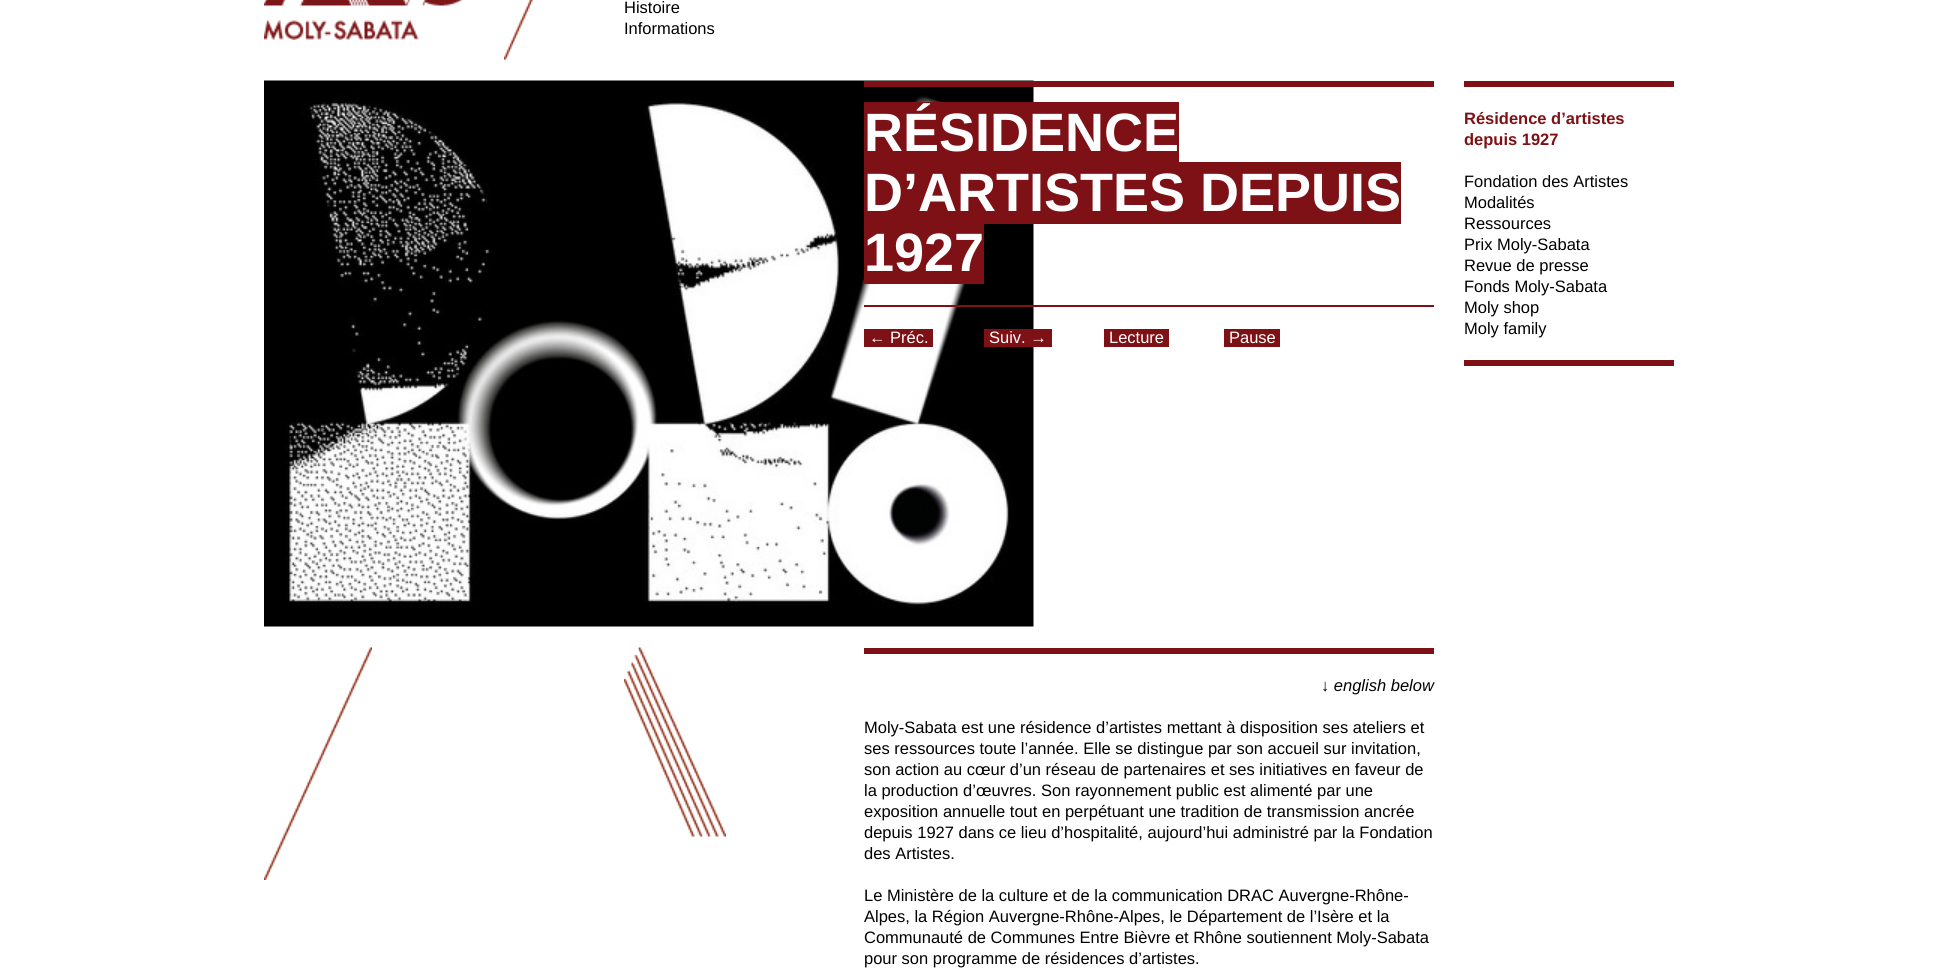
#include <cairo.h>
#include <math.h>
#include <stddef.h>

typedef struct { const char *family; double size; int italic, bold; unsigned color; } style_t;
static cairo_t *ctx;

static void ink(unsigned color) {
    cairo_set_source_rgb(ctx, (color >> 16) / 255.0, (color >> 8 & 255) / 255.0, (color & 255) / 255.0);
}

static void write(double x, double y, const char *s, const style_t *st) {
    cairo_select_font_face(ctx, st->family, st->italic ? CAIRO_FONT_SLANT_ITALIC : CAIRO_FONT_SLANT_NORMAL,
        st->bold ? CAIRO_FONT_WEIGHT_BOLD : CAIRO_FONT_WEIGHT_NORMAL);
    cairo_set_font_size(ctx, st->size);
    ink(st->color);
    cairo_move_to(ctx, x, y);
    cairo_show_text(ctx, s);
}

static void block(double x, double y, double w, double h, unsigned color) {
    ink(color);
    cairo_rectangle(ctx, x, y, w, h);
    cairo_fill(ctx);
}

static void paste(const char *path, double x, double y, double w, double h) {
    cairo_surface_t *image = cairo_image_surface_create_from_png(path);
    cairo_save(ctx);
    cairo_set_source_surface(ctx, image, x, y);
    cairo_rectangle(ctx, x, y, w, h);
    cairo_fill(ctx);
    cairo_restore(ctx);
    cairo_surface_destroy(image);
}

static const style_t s1 = {"Liberation Sans", 16.5, 0, 0, 0x000000};
static const style_t s2 = {"Liberation Sans", 54, 0, 1, 0xffffff};
static const style_t s3 = {"Liberation Sans", 16.5, 0, 0, 0xffffff};
static const style_t s4 = {"Liberation Sans", 16.5, 1, 0, 0x000000};
static const style_t s5 = {"Liberation Sans", 16.5, 0, 1, 0x7e1115};

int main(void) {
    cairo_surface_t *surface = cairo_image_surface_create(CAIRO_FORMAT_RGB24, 1937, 978);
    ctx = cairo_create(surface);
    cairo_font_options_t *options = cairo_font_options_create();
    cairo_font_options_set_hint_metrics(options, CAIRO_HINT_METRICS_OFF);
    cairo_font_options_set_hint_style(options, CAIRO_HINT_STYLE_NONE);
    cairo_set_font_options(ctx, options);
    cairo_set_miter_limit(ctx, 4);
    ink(0xffffff);
    cairo_paint(ctx);
    paste("pic1.png", 264, 0, 199, 40);
    paste("pic2.png", 504, 0, 29, 60);
    write(624, 13, "Histoire", &s1);
    write(624, 34, "Informations", &s1);
    paste("pic3.png", 264, 80, 770, 547);
    block(864, 81, 570, 6, 0x7e1115);
    block(864, 102, 315, 60, 0x7e1115);
    write(864, 151, "RÉSIDENCE", &s2);
    block(864, 162, 537, 62, 0x7e1115);
    write(864, 211, "D’ARTISTES DEPUIS", &s2);
    block(864, 224, 120, 60, 0x7e1115);
    write(864, 271, "1927", &s2);
    block(864, 305, 570, 2, 0x7e1115);
    block(864, 329, 69, 18, 0x7e1115);
    write(869, 343, "← Préc.", &s3);
    block(984, 329, 68, 18, 0x7e1115);
    write(989, 343, "Suiv. →", &s3);
    block(1104, 329, 65, 18, 0x7e1115);
    write(1109, 343, "Lecture", &s3);
    block(1224, 329, 56, 18, 0x7e1115);
    write(1229, 343, "Pause", &s3);
    paste("pic4.png", 264, 647, 108, 233);
    paste("pic5.png", 624, 647, 102, 190);
    block(864, 648, 570, 6, 0x7e1115);
    write(1321, 691, "↓ english below", &s4);
    write(864, 733, "Moly-Sabata est une résidence d’artistes mettant à disposition ses ateliers et", &s1);
    write(864, 754, "ses ressources toute l’année. Elle se distingue par son accueil sur invitation,", &s1);
    write(864, 775, "son action au cœur d’un réseau de partenaires et ses initiatives en faveur de", &s1);
    write(864, 796, "la production d’œuvres. Son rayonnement public est alimenté par une", &s1);
    write(864, 817, "exposition annuelle tout en perpétuant une tradition de transmission ancrée", &s1);
    write(864, 838, "depuis 1927 dans ce lieu d’hospitalité, aujourd’hui administré par la Fondation", &s1);
    write(864, 859, "des Artistes.", &s1);
    write(864, 901, "Le Ministère de la culture et de la communication DRAC Auvergne-Rhône-", &s1);
    write(864, 922, "Alpes, la Région Auvergne-Rhône-Alpes, le Département de l’Isère et la", &s1);
    write(864, 943, "Communauté de Communes Entre Bièvre et Rhône soutiennent Moly-Sabata", &s1);
    write(864, 964, "pour son programme de résidences d’artistes.", &s1);
    block(1464, 81, 210, 6, 0x7e1115);
    block(1464, 360, 210, 6, 0x7e1115);
    write(1464, 124, "Résidence d’artistes", &s5);
    write(1464, 145, "depuis 1927", &s5);
    write(1464, 187, "Fondation des Artistes", &s1);
    write(1464, 208, "Modalités", &s1);
    write(1464, 229, "Ressources", &s1);
    write(1464, 250, "Prix Moly-Sabata", &s1);
    write(1464, 271, "Revue de presse", &s1);
    write(1464, 292, "Fonds Moly-Sabata", &s1);
    write(1464, 313, "Moly shop", &s1);
    write(1464, 334, "Moly family", &s1);
    cairo_surface_write_to_png(surface, "screenshot.png");
    cairo_font_options_destroy(options);
    cairo_destroy(ctx);
    cairo_surface_destroy(surface);
    return 0;
}
